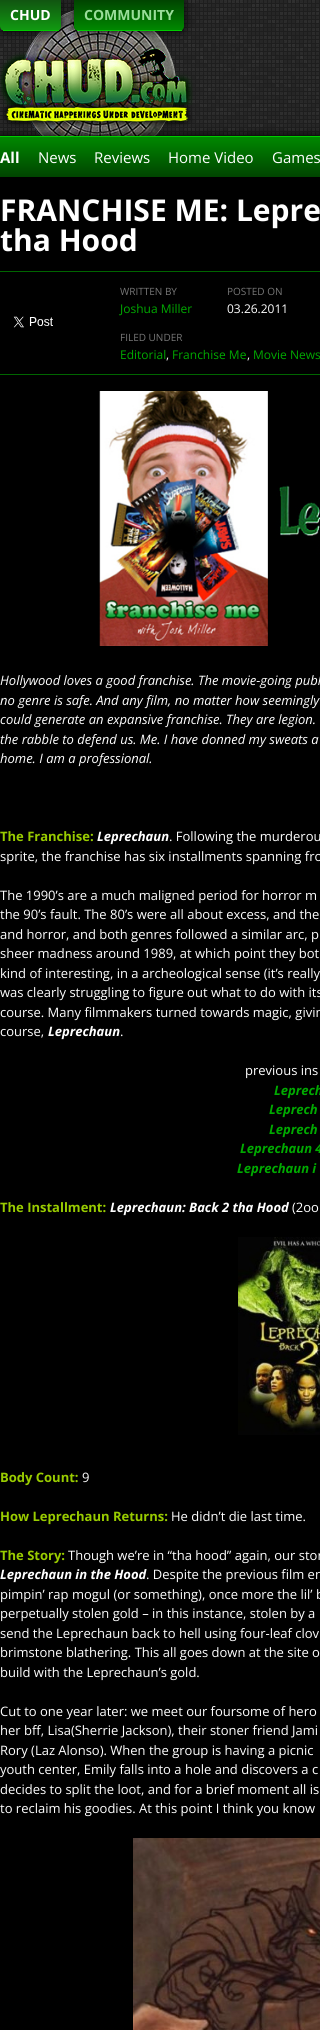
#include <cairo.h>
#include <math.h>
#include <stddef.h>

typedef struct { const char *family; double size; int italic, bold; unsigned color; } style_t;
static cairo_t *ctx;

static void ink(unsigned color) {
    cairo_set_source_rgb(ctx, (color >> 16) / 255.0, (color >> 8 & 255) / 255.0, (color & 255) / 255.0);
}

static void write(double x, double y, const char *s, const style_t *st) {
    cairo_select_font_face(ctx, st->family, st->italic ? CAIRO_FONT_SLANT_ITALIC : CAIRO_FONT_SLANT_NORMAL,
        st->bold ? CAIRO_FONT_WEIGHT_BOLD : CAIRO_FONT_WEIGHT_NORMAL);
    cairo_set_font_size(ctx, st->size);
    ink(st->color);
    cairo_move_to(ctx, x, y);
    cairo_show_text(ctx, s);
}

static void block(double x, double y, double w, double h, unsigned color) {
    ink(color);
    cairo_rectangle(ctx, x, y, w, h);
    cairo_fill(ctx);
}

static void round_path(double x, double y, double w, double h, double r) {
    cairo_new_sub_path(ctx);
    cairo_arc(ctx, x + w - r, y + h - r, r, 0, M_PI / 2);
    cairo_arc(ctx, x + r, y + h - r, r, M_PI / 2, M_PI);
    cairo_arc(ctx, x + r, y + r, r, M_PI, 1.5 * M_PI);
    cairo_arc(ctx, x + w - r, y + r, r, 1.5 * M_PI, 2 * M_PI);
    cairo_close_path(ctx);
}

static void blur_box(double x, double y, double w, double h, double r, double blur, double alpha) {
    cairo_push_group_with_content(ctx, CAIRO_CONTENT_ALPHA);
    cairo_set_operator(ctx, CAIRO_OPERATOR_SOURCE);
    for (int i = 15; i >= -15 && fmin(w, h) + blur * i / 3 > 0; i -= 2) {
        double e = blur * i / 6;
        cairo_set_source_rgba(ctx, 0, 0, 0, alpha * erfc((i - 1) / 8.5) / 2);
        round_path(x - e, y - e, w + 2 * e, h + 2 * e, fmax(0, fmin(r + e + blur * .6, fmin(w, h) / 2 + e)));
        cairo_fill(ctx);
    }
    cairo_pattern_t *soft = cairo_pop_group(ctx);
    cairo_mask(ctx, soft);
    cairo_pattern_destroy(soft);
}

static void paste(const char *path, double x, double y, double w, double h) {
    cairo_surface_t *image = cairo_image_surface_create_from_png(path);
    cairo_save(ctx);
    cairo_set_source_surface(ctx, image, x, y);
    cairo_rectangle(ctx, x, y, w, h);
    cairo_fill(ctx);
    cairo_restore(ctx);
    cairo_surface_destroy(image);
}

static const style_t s1 = {"Open Sans", 14, 0, 1, 0xffffff};
static const style_t s2 = {"Open Sans", 14, 0, 1, 0x99dd99};
static const style_t s3 = {"Open Sans", 15, 0, 1, 0xffffff};
static const style_t s4 = {"Open Sans", 15, 0, 0, 0xffffff};
static const style_t s5 = {"Open Sans", 30, 0, 1, 0xffffff};
static const style_t s6 = {"Open Sans", 10, 0, 0, 0x777777};
static const style_t s7 = {"Open Sans", 12, 0, 0, 0x00aa00};
static const style_t s8 = {"Open Sans", 12, 0, 0, 0xffffff};
static const style_t s9 = {"Open Sans", 13, 1, 0, 0xffffff};
static const style_t s10 = {"Open Sans", 13, 0, 1, 0x99cc00};
static const style_t s11 = {"Open Sans", 13, 1, 1, 0xffffff};
static const style_t s12 = {"Open Sans", 13, 0, 0, 0xffffff};
static const style_t s13 = {"Open Sans", 13, 1, 1, 0x00aa00};

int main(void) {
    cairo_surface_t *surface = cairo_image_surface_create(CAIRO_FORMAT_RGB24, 320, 2030);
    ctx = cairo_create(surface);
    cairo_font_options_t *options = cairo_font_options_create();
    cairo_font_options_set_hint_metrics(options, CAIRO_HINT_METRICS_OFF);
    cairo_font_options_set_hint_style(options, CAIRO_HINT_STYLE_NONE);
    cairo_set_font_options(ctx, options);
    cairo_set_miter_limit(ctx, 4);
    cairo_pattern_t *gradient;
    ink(0x000000);
    cairo_paint(ctx);
    block(0, 0, 320, 136, 0x1e1e1e);
    paste("pic1.png", 0, 0, 319, 135);
    paste("pic2.png", 0, 10, 193, 126);
    ink(0x000000);
    blur_box(0, 0, 61, 31, 5, 5, 1);
    cairo_save(ctx);
    cairo_new_path(ctx);
    cairo_move_to(ctx, 0, 0);
    cairo_line_to(ctx, 61, 0);
    cairo_line_to(ctx, 61, 26);
    cairo_curve_to(ctx, 61, 29, 59, 31, 56, 31);
    cairo_line_to(ctx, 5, 31);
    cairo_curve_to(ctx, 2, 31, 0, 29, 0, 26);
    cairo_close_path(ctx);
    cairo_clip(ctx);
    gradient = cairo_pattern_create_linear(0, 30, 0, 0);
    cairo_pattern_add_color_stop_rgba(gradient, 0, 0.067, 0.6, 0.067, 1);
    cairo_pattern_add_color_stop_rgba(gradient, 1, 0.067, 0.333, 0.067, 1);
    cairo_set_source(ctx, gradient);
    cairo_pattern_destroy(gradient);
    cairo_rectangle(ctx, 0, 0, 61, 30);
    cairo_fill(ctx);
    cairo_restore(ctx);
    block(3, 30, 56, 1, 0x00cc00);
    write(10, 20, "CHUD", &s1);
    ink(0x000000);
    blur_box(74, 0, 110, 31, 5, 5, 1);
    cairo_save(ctx);
    cairo_new_path(ctx);
    cairo_move_to(ctx, 74, 0);
    cairo_line_to(ctx, 184, 0);
    cairo_line_to(ctx, 184, 26);
    cairo_curve_to(ctx, 184, 29, 182, 31, 179, 31);
    cairo_line_to(ctx, 79, 31);
    cairo_curve_to(ctx, 76, 31, 74, 29, 74, 26);
    cairo_close_path(ctx);
    cairo_clip(ctx);
    gradient = cairo_pattern_create_linear(74, 30, 74, 0);
    cairo_pattern_add_color_stop_rgba(gradient, 0, 0, 0.533, 0, 1);
    cairo_pattern_add_color_stop_rgba(gradient, 1, 0, 0.267, 0, 1);
    cairo_set_source(ctx, gradient);
    cairo_pattern_destroy(gradient);
    cairo_rectangle(ctx, 74, 0, 110, 30);
    cairo_fill(ctx);
    cairo_restore(ctx);
    block(77, 30, 105, 1, 0x00cc00);
    write(84, 20, "COMMUNITY", &s2);
    ink(0x000000);
    blur_box(0, 136, 320, 41, 0, 5, 1);
    gradient = cairo_pattern_create_linear(0, 177, 0, 137);
    cairo_pattern_add_color_stop_rgba(gradient, 0, 0, 0.267, 0, 1);
    cairo_pattern_add_color_stop_rgba(gradient, 1, 0, 0.533, 0, 1);
    cairo_set_source(ctx, gradient);
    cairo_pattern_destroy(gradient);
    cairo_rectangle(ctx, 0, 137, 320, 40);
    cairo_fill(ctx);
    block(0, 136, 320, 1, 0x00cc00);
    write(0, 163, "All", &s3);
    write(38, 163, "News", &s4);
    write(94, 163, "Reviews", &s4);
    write(168, 163, "Home Video", &s4);
    write(272, 163, "Games", &s4);
    write(0, 221, "FRANCHISE ME: Lepre", &s5);
    write(0, 251, "tha Hood", &s5);
    block(0, 271, 320, 1, 0x006600);
    block(0, 374, 320, 1, 0x006600);
    paste("pic3.png", 13, 316, 40, 12);
    write(120, 295, "WRITTEN BY", &s6);
    write(120, 313, "Joshua Miller", &s7);
    write(227, 295, "POSTED ON", &s6);
    write(227, 313, "03.26.2011", &s8);
    write(120, 341, "FILED UNDER", &s6);
    write(120, 359, "Editorial", &s7);
    write(166, 359, ",", &s8);
    write(172, 359, "Franchise Me", &s7);
    write(247, 359, ",", &s8);
    write(253, 359, "Movie News", &s7);
    paste("pic4.png", 99, 391, 221, 255);
    write(0, 685, "Hollywood loves a good franchise. The movie-going publ", &s9);
    write(0, 705, "no genre is safe. And any film, no matter how seemingly", &s9);
    write(0, 724, "could generate an expansive franchise. They are legion.", &s9);
    write(0, 744, "the rabble to defend us. Me. I have donned my sweats a", &s9);
    write(0, 763, "home. I am a professional.", &s9);
    write(0, 841, "The Franchise:", &s10);
    write(97, 841, "Leprechaun", &s11);
    write(169, 841, ". Following the murderou", &s12);
    write(0, 861, "sprite, the franchise has six installments spanning fro", &s12);
    write(0, 900, "The 1990’s are a much maligned period for horror m", &s12);
    write(0, 919, "the 90’s fault. The 80’s were all about excess, and the", &s12);
    write(0, 939, "and horror, and both genres followed a similar arc, p", &s12);
    write(0, 958, "sheer madness around 1989, at which point they bot", &s12);
    write(0, 978, "kind of interesting, in a archeological sense (it’s really", &s12);
    write(0, 997, "was clearly struggling to figure out what to do with its", &s12);
    write(0, 1017, "course. Many filmmakers turned towards magic, givin", &s12);
    write(0, 1036, "course,", &s12);
    write(48, 1036, "Leprechaun", &s11);
    write(120, 1036, ".", &s12);
    write(245, 1075, "previous ins", &s12);
    write(274, 1095, "Leprech", &s13);
    write(269, 1114, "Leprech", &s13);
    write(269, 1134, "Leprech", &s13);
    write(240, 1153, "Leprechaun 4", &s13);
    write(237, 1173, "Leprechaun i", &s13);
    write(0, 1212, "The Installment:", &s10);
    write(110, 1212, "Leprechaun: Back 2 tha Hood", &s11);
    write(292, 1212, "(2oo", &s12);
    paste("pic5.png", 238, 1237, 82, 198);
    write(0, 1482, "Body Count:", &s10);
    write(82, 1482, "9", &s12);
    write(0, 1521, "How Leprechaun Returns:", &s10);
    write(171, 1521, "He didn’t die last time.", &s12);
    write(0, 1560, "The Story:", &s10);
    write(68, 1560, "Though we’re in “tha hood” again, our stor", &s12);
    write(0, 1579, "Leprechaun in the Hood", &s11);
    write(146, 1579, ". Despite the previous film en", &s12);
    write(0, 1599, "pimpin’ rap mogul (or something), once more the lil’ b", &s12);
    write(0, 1618, "perpetually stolen gold – in this instance, stolen by a", &s12);
    write(0, 1638, "send the Leprechaun back to hell using four-leaf clov", &s12);
    write(0, 1657, "brimstone blathering. This all goes down at the site o", &s12);
    write(0, 1677, "build with the Leprechaun’s gold.", &s12);
    write(0, 1716, "Cut to one year later: we meet our foursome of hero", &s12);
    write(0, 1735, "her bff, Lisa(Sherrie Jackson), their stoner friend Jami", &s12);
    write(0, 1755, "Rory (Laz Alonso). When the group is having a picnic", &s12);
    write(0, 1774, "youth center, Emily falls into a hole and discovers a c", &s12);
    write(0, 1794, "decides to split the loot, and for a brief moment all is", &s12);
    write(0, 1813, "to reclaim his goodies. At this point I think you know", &s12);
    paste("pic6.png", 133, 1838, 187, 192);
    cairo_surface_write_to_png(surface, "screenshot.png");
    cairo_font_options_destroy(options);
    cairo_destroy(ctx);
    cairo_surface_destroy(surface);
    return 0;
}
